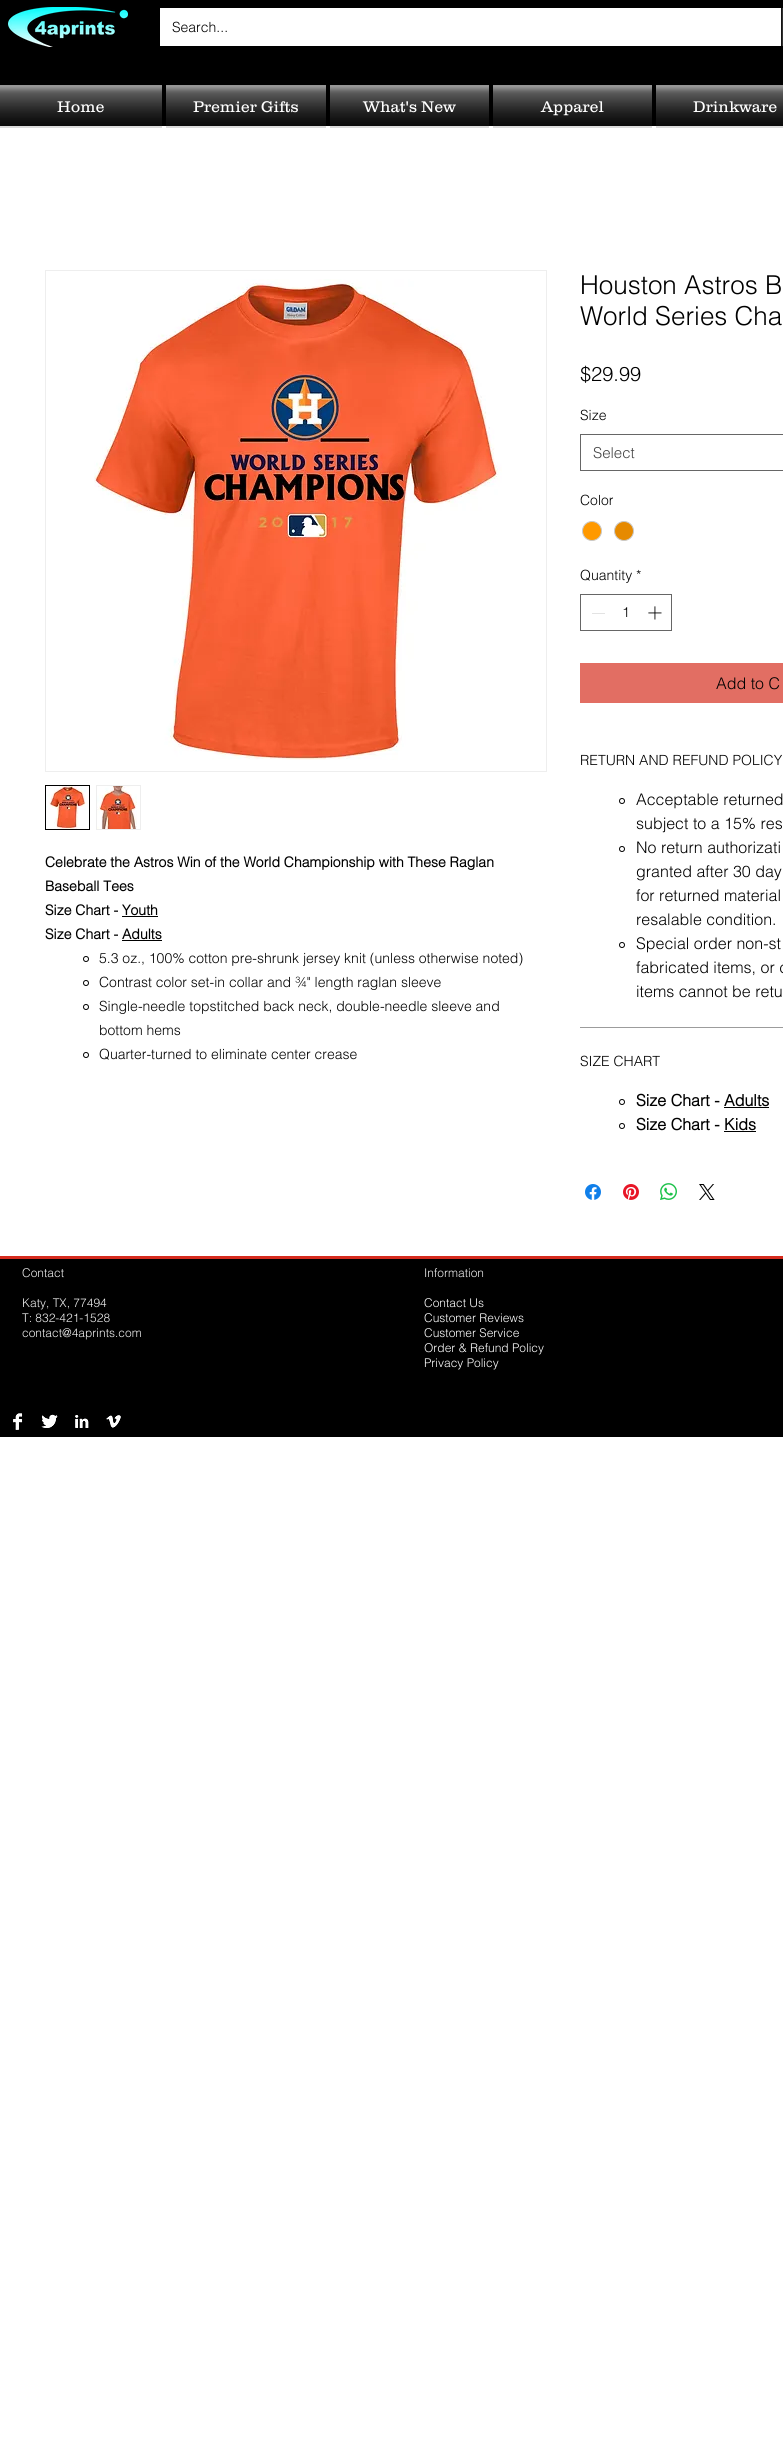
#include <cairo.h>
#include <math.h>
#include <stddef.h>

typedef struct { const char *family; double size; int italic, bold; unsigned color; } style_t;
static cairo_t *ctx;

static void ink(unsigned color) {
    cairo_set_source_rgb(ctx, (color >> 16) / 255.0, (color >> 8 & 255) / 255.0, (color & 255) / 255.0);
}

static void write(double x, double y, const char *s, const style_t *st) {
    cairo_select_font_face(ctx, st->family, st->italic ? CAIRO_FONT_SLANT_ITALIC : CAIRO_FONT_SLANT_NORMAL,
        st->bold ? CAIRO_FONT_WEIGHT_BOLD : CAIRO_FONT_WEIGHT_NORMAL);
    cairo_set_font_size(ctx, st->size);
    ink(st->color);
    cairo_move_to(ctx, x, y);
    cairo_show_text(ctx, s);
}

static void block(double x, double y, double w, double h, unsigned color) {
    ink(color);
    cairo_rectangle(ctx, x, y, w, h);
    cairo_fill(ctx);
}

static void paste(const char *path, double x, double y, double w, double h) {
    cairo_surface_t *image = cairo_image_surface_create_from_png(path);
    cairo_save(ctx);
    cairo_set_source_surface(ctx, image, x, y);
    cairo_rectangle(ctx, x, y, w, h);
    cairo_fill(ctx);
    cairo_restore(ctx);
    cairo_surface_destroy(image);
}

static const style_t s1 = {"helvetica Light", 14, 0, 0, 0x000000};
static const style_t s2 = {"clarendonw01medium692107 Light", 16, 0, 0, 0xffffff};
static const style_t s3 = {"helvetica", 14, 0, 1, 0x000000};
static const style_t s4 = {"helvetica Light", 26, 0, 0, 0x000000};
static const style_t s5 = {"helvetica Light", 20, 0, 0, 0x000000};
static const style_t s6 = {"helvetica Light", 15, 0, 0, 0x444444};
static const style_t s7 = {"helvetica Light", 16, 0, 0, 0x000000};
static const style_t s8 = {"helvetica", 16, 0, 1, 0x000000};
static const style_t s9 = {"helvetica Light", 12, 0, 0, 0xeeeeee};
static const style_t s10 = {"helvetica Light", 12, 0, 0, 0xffffff};

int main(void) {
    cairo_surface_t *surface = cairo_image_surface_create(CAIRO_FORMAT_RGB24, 783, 2449);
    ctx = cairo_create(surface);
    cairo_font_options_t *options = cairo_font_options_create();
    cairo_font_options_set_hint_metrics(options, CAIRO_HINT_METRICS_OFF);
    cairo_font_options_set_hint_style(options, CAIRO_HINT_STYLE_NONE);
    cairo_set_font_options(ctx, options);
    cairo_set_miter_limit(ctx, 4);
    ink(0xffffff);
    cairo_paint(ctx);
    block(0, 0, 783, 126, 0x000000);
    paste("pic1.png", 8, 7, 120, 40);
    block(160, 8, 621, 38, 0xffffff);
    write(172, 32, "Search...", &s1);
    block(782, 8, 1, 38, 0x333333);
    block(781, 8, 1, 38, 0x141414);
    paste("pic2.png", 0, 85, 162, 41);
    block(0, 126, 162, 2, 0xdbdbdb);
    write(57, 112, "Home", &s2);
    paste("pic3.png", 166, 85, 160, 41);
    block(166, 126, 160, 2, 0xdbdbdb);
    write(193, 112, "Premier Gifts", &s2);
    paste("pic4.png", 330, 85, 159, 41);
    block(330, 126, 159, 2, 0xdbdbdb);
    write(363, 112, "What's New", &s2);
    paste("pic4.png", 493, 85, 159, 41);
    block(493, 126, 159, 2, 0xdbdbdb);
    write(541, 112, "Apparel", &s2);
    paste("pic5.png", 656, 85, 127, 41);
    block(656, 126, 127, 2, 0xdbdbdb);
    write(693, 112, "Drinkware", &s2);
    cairo_rectangle(ctx, 45.5, 270.5, 501, 501);
    ink(0xeeeeee);
    cairo_set_line_width(ctx, 1);
    cairo_stroke(ctx);
    paste("pic6.png", 94, 279, 408, 481);
    cairo_rectangle(ctx, 45.5, 785.5, 44, 44);
    ink(0x000000);
    cairo_stroke(ctx);
    paste("pic7.png", 46, 786, 41, 43);
    cairo_rectangle(ctx, 96.5, 785.5, 44, 44);
    ink(0xeeeeee);
    cairo_stroke(ctx);
    paste("pic8.png", 97, 786, 40, 43);
    write(45, 867, "Celebrate the Astros Win of the World Championship with These Raglan", &s3);
    write(45, 891, "Baseball Tees", &s3);
    write(45, 915, "Size Chart - Youth", &s3);
    block(122, 916, 36, 1, 0x000000);
    write(45, 939, "Size Chart - Adults", &s3);
    block(122, 940, 40, 1, 0x000000);
    cairo_new_path(ctx);
    cairo_arc(ctx, 86, 959, 2.5, 0, 2 * M_PI);
    cairo_stroke(ctx);
    write(99, 963, "5.3 oz., 100% cotton pre-shrunk jersey knit (unless otherwise noted)", &s1);
    cairo_new_path(ctx);
    cairo_arc(ctx, 86, 983, 2.5, 0, 2 * M_PI);
    cairo_stroke(ctx);
    write(99, 987, "Contrast color set-in collar and ¾\" length raglan sleeve", &s1);
    cairo_new_path(ctx);
    cairo_arc(ctx, 86, 1007, 2.5, 0, 2 * M_PI);
    cairo_stroke(ctx);
    write(99, 1011, "Single-needle topstitched back neck, double-needle sleeve and", &s1);
    write(99, 1035, "bottom hems", &s1);
    cairo_new_path(ctx);
    cairo_arc(ctx, 86, 1055, 2.5, 0, 2 * M_PI);
    cairo_stroke(ctx);
    write(99, 1059, "Quarter-turned to eliminate center crease", &s1);
    write(580, 294, "Houston Astros B", &s4);
    write(580, 325, "World Series Cha", &s4);
    write(580, 381, "$29.99", &s5);
    write(580, 420, "Size", &s1);
    cairo_rectangle(ctx, 580.5, 434.5, 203, 36);
    ink(0x666666);
    cairo_stroke(ctx);
    write(593, 458, "Select", &s6);
    write(580, 505, "Color", &s1);
    ink(0xff9900);
    cairo_new_path(ctx);
    cairo_arc(ctx, 592, 531, 9.5, 0, 2 * M_PI);
    cairo_fill_preserve(ctx);
    ink(0xc9c9c9);
    cairo_stroke(ctx);
    ink(0xe68a00);
    cairo_arc(ctx, 624, 531, 9.5, 0, 2 * M_PI);
    cairo_fill_preserve(ctx);
    ink(0xc9c9c9);
    cairo_stroke(ctx);
    write(580, 580, "Quantity *", &s1);
    cairo_rectangle(ctx, 580.5, 594.5, 91, 36);
    ink(0x666666);
    cairo_stroke(ctx);
    block(592, 613, 13, 1, 0xe3e3e3);
    write(622, 617, "1", &s1);
    paste("pic9.png", 648, 606, 14, 14);
    block(580, 663, 203, 40, 0xe26e63);
    write(716, 689, "Add to C", &s7);
    block(580, 1027, 203, 1, 0x9c9c9c);
    write(580, 765, "RETURN AND REFUND POLICY", &s1);
    cairo_new_path(ctx);
    cairo_arc(ctx, 622, 801, 2.5, 0, 2 * M_PI);
    cairo_stroke(ctx);
    write(636, 805, "Acceptable returned", &s7);
    write(636, 829, "subject to a 15% res", &s7);
    cairo_new_path(ctx);
    cairo_arc(ctx, 622, 849, 2.5, 0, 2 * M_PI);
    cairo_stroke(ctx);
    write(636, 853, "No return authorizati", &s7);
    write(636, 877, "granted after 30 day", &s7);
    write(636, 901, "for returned material", &s7);
    write(636, 925, "resalable condition.", &s7);
    cairo_new_path(ctx);
    cairo_arc(ctx, 622, 945, 2.5, 0, 2 * M_PI);
    cairo_stroke(ctx);
    write(636, 949, "Special order non-st", &s7);
    write(636, 973, "fabricated items, or c", &s7);
    write(636, 997, "items cannot be retu", &s7);
    write(580, 1066, "SIZE CHART", &s1);
    cairo_new_path(ctx);
    cairo_arc(ctx, 622, 1102, 2.5, 0, 2 * M_PI);
    cairo_stroke(ctx);
    write(636, 1106, "Size Chart - Adults", &s8);
    block(724, 1107, 45, 1, 0x000000);
    cairo_new_path(ctx);
    cairo_arc(ctx, 622, 1126, 2.5, 0, 2 * M_PI);
    cairo_stroke(ctx);
    write(636, 1130, "Size Chart - Kids", &s8);
    block(724, 1131, 32, 1, 0x000000);
    paste("pic10.png", 585, 1184, 16, 16);
    paste("pic11.png", 623, 1184, 16, 16);
    paste("pic12.png", 660, 1183, 17, 17);
    paste("pic13.png", 699, 1184, 16, 16);
    block(0, 1259, 783, 178, 0x000000);
    block(0, 1256, 783, 3, 0xd52b1e);
    write(22, 1277, "Contact", &s9);
    write(22, 1307, "Katy, TX, 77494", &s9);
    write(22, 1322, "T: 832-421-1528", &s9);
    write(22, 1337, "contact@4aprints.com", &s9);
    write(424, 1277, "Information", &s9);
    write(424, 1307, "Contact Us", &s10);
    write(424, 1322, "Customer Reviews", &s10);
    write(424, 1337, "Customer Service", &s10);
    write(424, 1352, "Order & Refund Policy", &s10);
    write(424, 1367, "Privacy Policy", &s10);
    paste("pic14.png", 13, 1413, 10, 17);
    paste("pic15.png", 41, 1414, 17, 14);
    paste("pic16.png", 75, 1415, 14, 13);
    paste("pic17.png", 106, 1415, 15, 13);
    cairo_surface_write_to_png(surface, "screenshot.png");
    cairo_font_options_destroy(options);
    cairo_destroy(ctx);
    cairo_surface_destroy(surface);
    return 0;
}
